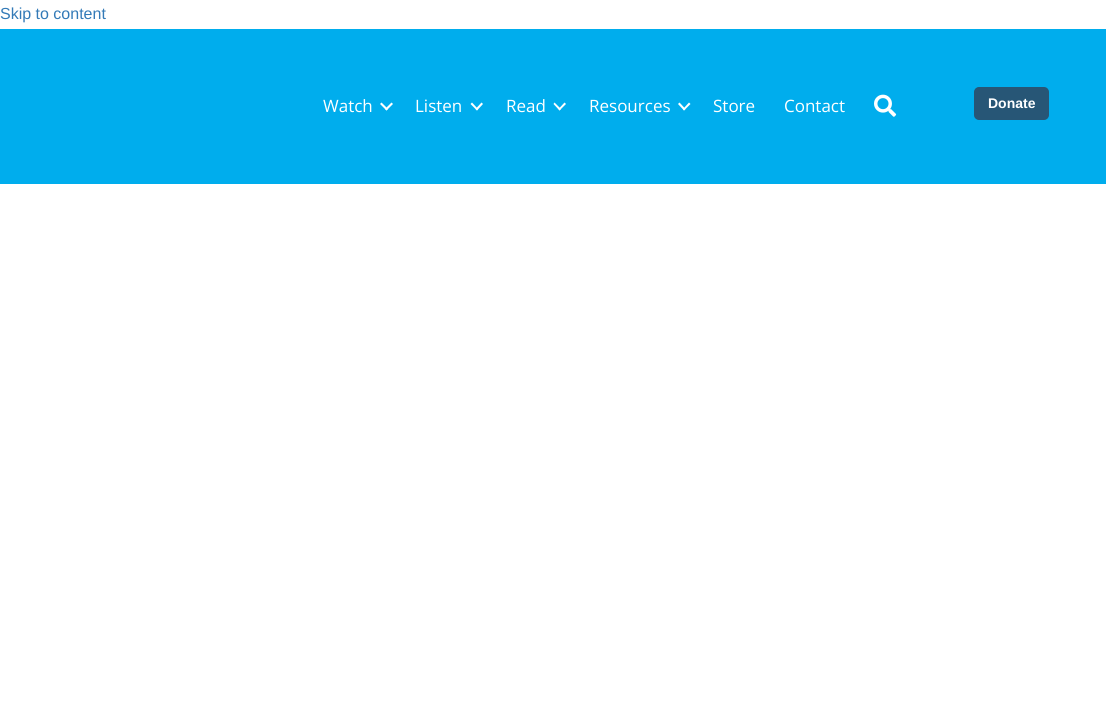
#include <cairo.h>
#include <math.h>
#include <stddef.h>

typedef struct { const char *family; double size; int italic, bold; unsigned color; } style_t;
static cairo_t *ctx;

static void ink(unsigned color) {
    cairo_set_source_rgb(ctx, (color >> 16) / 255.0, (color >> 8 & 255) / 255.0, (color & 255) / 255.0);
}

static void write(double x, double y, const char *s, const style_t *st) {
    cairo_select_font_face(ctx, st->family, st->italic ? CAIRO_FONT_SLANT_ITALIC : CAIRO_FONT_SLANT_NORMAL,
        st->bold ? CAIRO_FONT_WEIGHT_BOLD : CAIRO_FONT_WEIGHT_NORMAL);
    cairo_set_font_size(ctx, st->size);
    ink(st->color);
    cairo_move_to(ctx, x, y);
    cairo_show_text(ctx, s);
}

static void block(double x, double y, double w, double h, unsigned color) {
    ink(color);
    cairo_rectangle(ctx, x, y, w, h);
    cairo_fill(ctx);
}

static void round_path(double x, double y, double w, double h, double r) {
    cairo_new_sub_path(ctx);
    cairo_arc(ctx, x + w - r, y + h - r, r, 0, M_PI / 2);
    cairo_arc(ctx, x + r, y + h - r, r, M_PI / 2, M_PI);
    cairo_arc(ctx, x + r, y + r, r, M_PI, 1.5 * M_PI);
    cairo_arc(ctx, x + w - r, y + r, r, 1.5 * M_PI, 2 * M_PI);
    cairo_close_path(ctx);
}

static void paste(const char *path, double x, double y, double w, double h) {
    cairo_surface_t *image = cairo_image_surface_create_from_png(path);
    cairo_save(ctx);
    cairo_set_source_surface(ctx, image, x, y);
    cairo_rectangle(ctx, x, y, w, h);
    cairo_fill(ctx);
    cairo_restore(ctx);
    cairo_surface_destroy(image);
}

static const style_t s1 = {"Liberation Sans", 16, 0, 0, 0x337ab7};
static const style_t s2 = {"Open Sans", 17, 0, 0, 0xffffff};
static const style_t s3 = {"Liberation Sans", 14, 0, 1, 0xffffff};

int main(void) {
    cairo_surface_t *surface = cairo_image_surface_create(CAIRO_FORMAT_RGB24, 1106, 714);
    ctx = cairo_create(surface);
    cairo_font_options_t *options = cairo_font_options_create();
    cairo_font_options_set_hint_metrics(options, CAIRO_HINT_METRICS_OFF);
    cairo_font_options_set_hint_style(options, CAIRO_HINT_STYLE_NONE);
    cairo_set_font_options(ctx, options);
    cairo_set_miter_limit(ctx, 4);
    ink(0xffffff);
    cairo_paint(ctx);
    write(0, 19, "Skip to content", &s1);
    block(0, 29, 1106, 155, 0x00aded);
    write(323, 112, "Watch", &s2);
    cairo_new_path(ctx);
    cairo_move_to(ctx, 391.5, 102.5);
    cairo_line_to(ctx, 393, 104);
    cairo_line_to(ctx, 386.5, 110.5);
    cairo_line_to(ctx, 385, 109);
    cairo_close_path(ctx);
    cairo_fill(ctx);
    cairo_new_path(ctx);
    cairo_move_to(ctx, 381.5, 102.5);
    cairo_line_to(ctx, 388, 109);
    cairo_line_to(ctx, 386.5, 110.5);
    cairo_line_to(ctx, 380, 104);
    cairo_close_path(ctx);
    cairo_fill(ctx);
    write(415, 112, "Listen", &s2);
    cairo_new_path(ctx);
    cairo_move_to(ctx, 481.5, 102.5);
    cairo_line_to(ctx, 483, 104);
    cairo_line_to(ctx, 477, 110.5);
    cairo_line_to(ctx, 475.5, 109);
    cairo_close_path(ctx);
    cairo_fill(ctx);
    cairo_new_path(ctx);
    cairo_move_to(ctx, 472, 102.5);
    cairo_line_to(ctx, 478, 109);
    cairo_line_to(ctx, 477, 110.5);
    cairo_line_to(ctx, 470.5, 104);
    cairo_close_path(ctx);
    cairo_fill(ctx);
    write(506, 112, "Read", &s2);
    cairo_new_path(ctx);
    cairo_move_to(ctx, 564.5, 102.5);
    cairo_line_to(ctx, 566, 104);
    cairo_line_to(ctx, 559.5, 110.5);
    cairo_line_to(ctx, 558.5, 109);
    cairo_close_path(ctx);
    cairo_fill(ctx);
    cairo_new_path(ctx);
    cairo_move_to(ctx, 554.5, 102.5);
    cairo_line_to(ctx, 561, 109);
    cairo_line_to(ctx, 559.5, 110.5);
    cairo_line_to(ctx, 553.5, 104);
    cairo_close_path(ctx);
    cairo_fill(ctx);
    write(589, 112, "Resources", &s2);
    cairo_new_path(ctx);
    cairo_move_to(ctx, 689, 102.5);
    cairo_line_to(ctx, 690.5, 104);
    cairo_line_to(ctx, 684, 110.5);
    cairo_line_to(ctx, 683, 109);
    cairo_close_path(ctx);
    cairo_fill(ctx);
    cairo_new_path(ctx);
    cairo_move_to(ctx, 679.5, 102.5);
    cairo_line_to(ctx, 685.5, 109);
    cairo_line_to(ctx, 684, 110.5);
    cairo_line_to(ctx, 678, 104);
    cairo_close_path(ctx);
    cairo_fill(ctx);
    write(713, 112, "Store", &s2);
    write(784, 112, "Contact", &s2);
    paste("pic1.png", 874, 94, 23, 23);
    ink(0x275676);
    round_path(975, 88, 73, 31, 4);
    cairo_fill_preserve(ctx);
    cairo_stroke(ctx);
    write(988, 108, "Donate", &s3);
    cairo_surface_write_to_png(surface, "screenshot.png");
    cairo_font_options_destroy(options);
    cairo_destroy(ctx);
    cairo_surface_destroy(surface);
    return 0;
}
